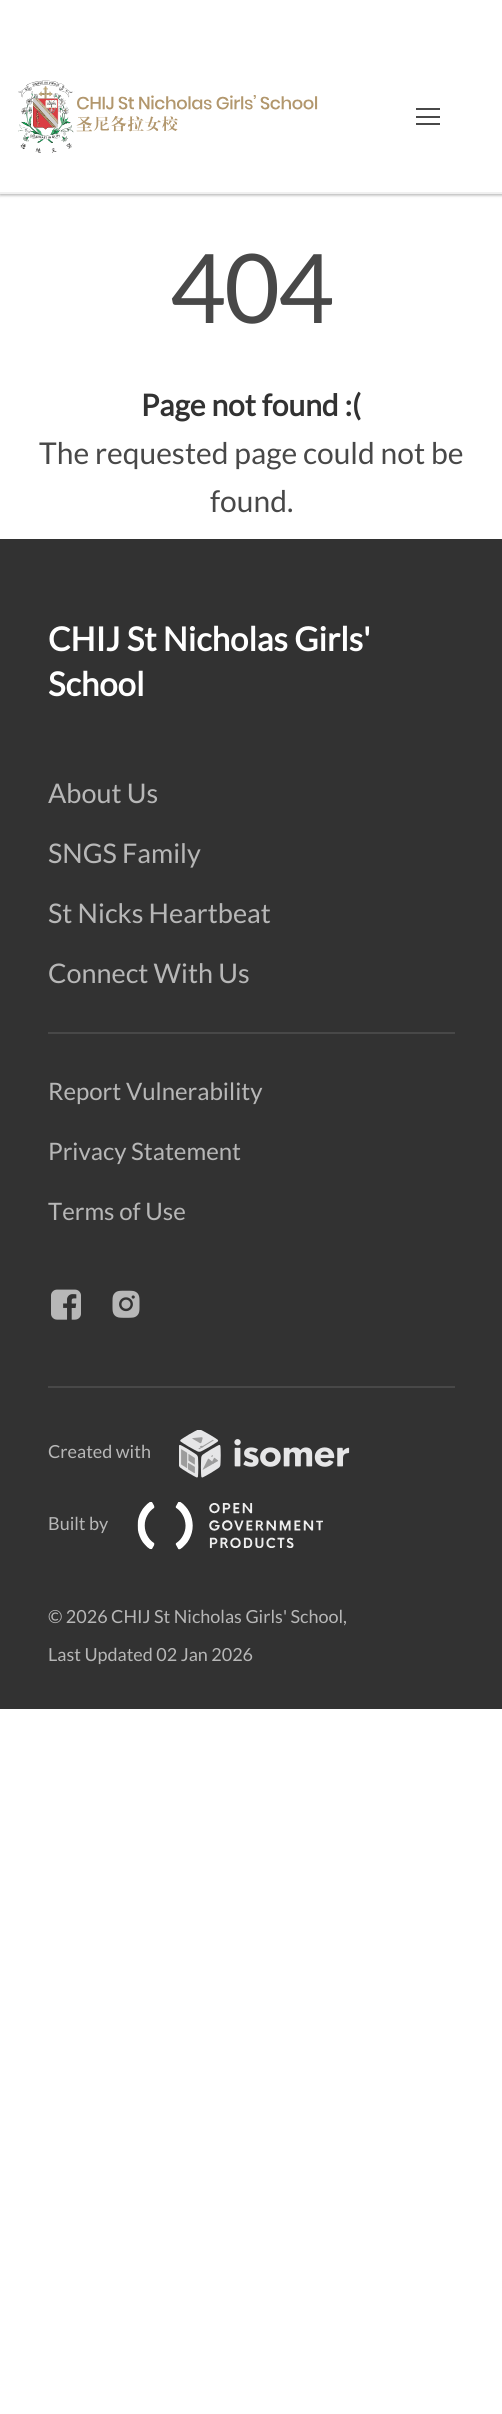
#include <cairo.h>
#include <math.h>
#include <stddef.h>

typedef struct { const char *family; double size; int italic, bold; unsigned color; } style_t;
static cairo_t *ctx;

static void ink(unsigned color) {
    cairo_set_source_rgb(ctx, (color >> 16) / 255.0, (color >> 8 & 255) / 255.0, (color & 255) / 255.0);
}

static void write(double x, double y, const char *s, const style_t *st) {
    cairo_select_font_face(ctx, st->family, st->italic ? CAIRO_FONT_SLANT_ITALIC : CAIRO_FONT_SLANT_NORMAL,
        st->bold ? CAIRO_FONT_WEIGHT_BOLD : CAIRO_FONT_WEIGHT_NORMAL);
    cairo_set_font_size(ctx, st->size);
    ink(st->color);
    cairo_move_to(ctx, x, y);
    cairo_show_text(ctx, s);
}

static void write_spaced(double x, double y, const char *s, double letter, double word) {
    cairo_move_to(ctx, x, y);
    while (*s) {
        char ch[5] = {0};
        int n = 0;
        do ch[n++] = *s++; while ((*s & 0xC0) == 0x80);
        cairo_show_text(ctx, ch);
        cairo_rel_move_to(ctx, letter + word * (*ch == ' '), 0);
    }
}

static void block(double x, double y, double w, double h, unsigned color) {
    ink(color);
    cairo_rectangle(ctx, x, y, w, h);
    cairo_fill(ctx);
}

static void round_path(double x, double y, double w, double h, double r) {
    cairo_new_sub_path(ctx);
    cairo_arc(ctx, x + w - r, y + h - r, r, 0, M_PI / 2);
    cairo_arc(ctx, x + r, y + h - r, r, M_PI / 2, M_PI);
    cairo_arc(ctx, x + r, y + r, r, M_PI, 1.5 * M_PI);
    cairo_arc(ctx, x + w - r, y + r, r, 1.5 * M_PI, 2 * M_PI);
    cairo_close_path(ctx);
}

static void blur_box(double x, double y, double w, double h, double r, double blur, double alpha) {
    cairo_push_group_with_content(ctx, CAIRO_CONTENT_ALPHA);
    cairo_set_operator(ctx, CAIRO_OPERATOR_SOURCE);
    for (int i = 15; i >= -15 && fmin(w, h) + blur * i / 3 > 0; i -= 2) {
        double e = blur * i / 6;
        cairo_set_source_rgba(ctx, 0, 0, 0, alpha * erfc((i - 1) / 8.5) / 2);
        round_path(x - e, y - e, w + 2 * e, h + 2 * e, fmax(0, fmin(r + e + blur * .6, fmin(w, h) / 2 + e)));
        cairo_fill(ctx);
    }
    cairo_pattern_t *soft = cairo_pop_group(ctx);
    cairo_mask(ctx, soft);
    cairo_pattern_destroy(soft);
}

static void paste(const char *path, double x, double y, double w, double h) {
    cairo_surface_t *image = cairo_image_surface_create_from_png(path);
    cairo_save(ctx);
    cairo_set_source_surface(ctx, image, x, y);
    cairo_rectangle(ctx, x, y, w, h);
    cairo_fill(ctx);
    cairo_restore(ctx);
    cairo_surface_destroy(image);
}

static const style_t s1 = {"Lato", 30, 0, 1, 0x323232};
static const style_t s2 = {"Lato", 30, 0, 0, 0x484848};
static const style_t s3 = {"Lato", 33, 0, 1, 0xffffff};
static const style_t s4 = {"Lato", 27, 0, 0, 0xb7b7b7};
static const style_t s5 = {"Lato", 24, 0, 0, 0xb7b7b7};
static const style_t s6 = {"Lato", 18, 0, 0, 0xb7b7b7};

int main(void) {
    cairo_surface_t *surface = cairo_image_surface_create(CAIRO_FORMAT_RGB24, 502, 2414);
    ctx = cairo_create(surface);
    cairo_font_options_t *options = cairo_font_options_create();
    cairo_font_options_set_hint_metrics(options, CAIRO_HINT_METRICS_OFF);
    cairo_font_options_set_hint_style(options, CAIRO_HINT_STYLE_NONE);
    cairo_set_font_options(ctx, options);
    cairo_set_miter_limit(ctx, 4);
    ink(0xffffff);
    cairo_paint(ctx);
    ink(0x000000);
    blur_box(0, -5, 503, 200, 0, 1.5, 0.24);
    blur_box(0, -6, 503, 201, 0, 2, 0.12);
    block(0, 0, 502, 192, 0xffffff);
    block(0, 192, 502, 2, 0xf0f0f0);
    paste("pic1.png", 18, 80, 300, 73);
    block(416, 108, 24, 2, 0x484848);
    block(416, 116, 24, 2, 0x484848);
    block(416, 123, 24, 2, 0x484848);
    cairo_select_font_face(ctx, "Lato", CAIRO_FONT_SLANT_NORMAL, CAIRO_FONT_WEIGHT_NORMAL);
    cairo_set_font_size(ctx, 96);
    write_spaced(170, 323, "404", -1.5, 0);
    write(141, 416, "Page not found :(", &s1);
    write(39, 464, "The requested page could not be", &s2);
    write(210, 512, "found.", &s2);
    block(0, 539, 502, 1170, 0x323232);
    write(48, 651, "CHIJ St Nicholas Girls'", &s3);
    write(48, 696, "School", &s3);
    write(48, 803, "About Us", &s4);
    write(48, 863, "SNGS Family", &s4);
    write(48, 923, "St Nicks Heartbeat", &s4);
    write(48, 983, "Connect With Us", &s4);
    block(48, 1032, 407, 2, 0x484848);
    write(48, 1100, "Report Vulnerability", &s5);
    write(48, 1160, "Privacy Statement", &s5);
    write(48, 1220, "Terms of Use", &s5);
    paste("pic2.png", 51, 1289, 30, 31);
    paste("pic3.png", 112, 1290, 28, 28);
    block(48, 1386, 407, 2, 0x484848);
    write(48, 1458, "Created with", &s6);
    paste("pic4.png", 179, 1430, 171, 48);
    write(48, 1530, "Built by", &s6);
    paste("pic5.png", 137, 1502, 186, 48);
    write(48, 1623, "© 2026 CHIJ St Nicholas Girls' School,", &s6);
    write(48, 1661, "Last Updated 02 Jan 2026", &s6);
    cairo_surface_write_to_png(surface, "screenshot.png");
    cairo_font_options_destroy(options);
    cairo_destroy(ctx);
    cairo_surface_destroy(surface);
    return 0;
}
